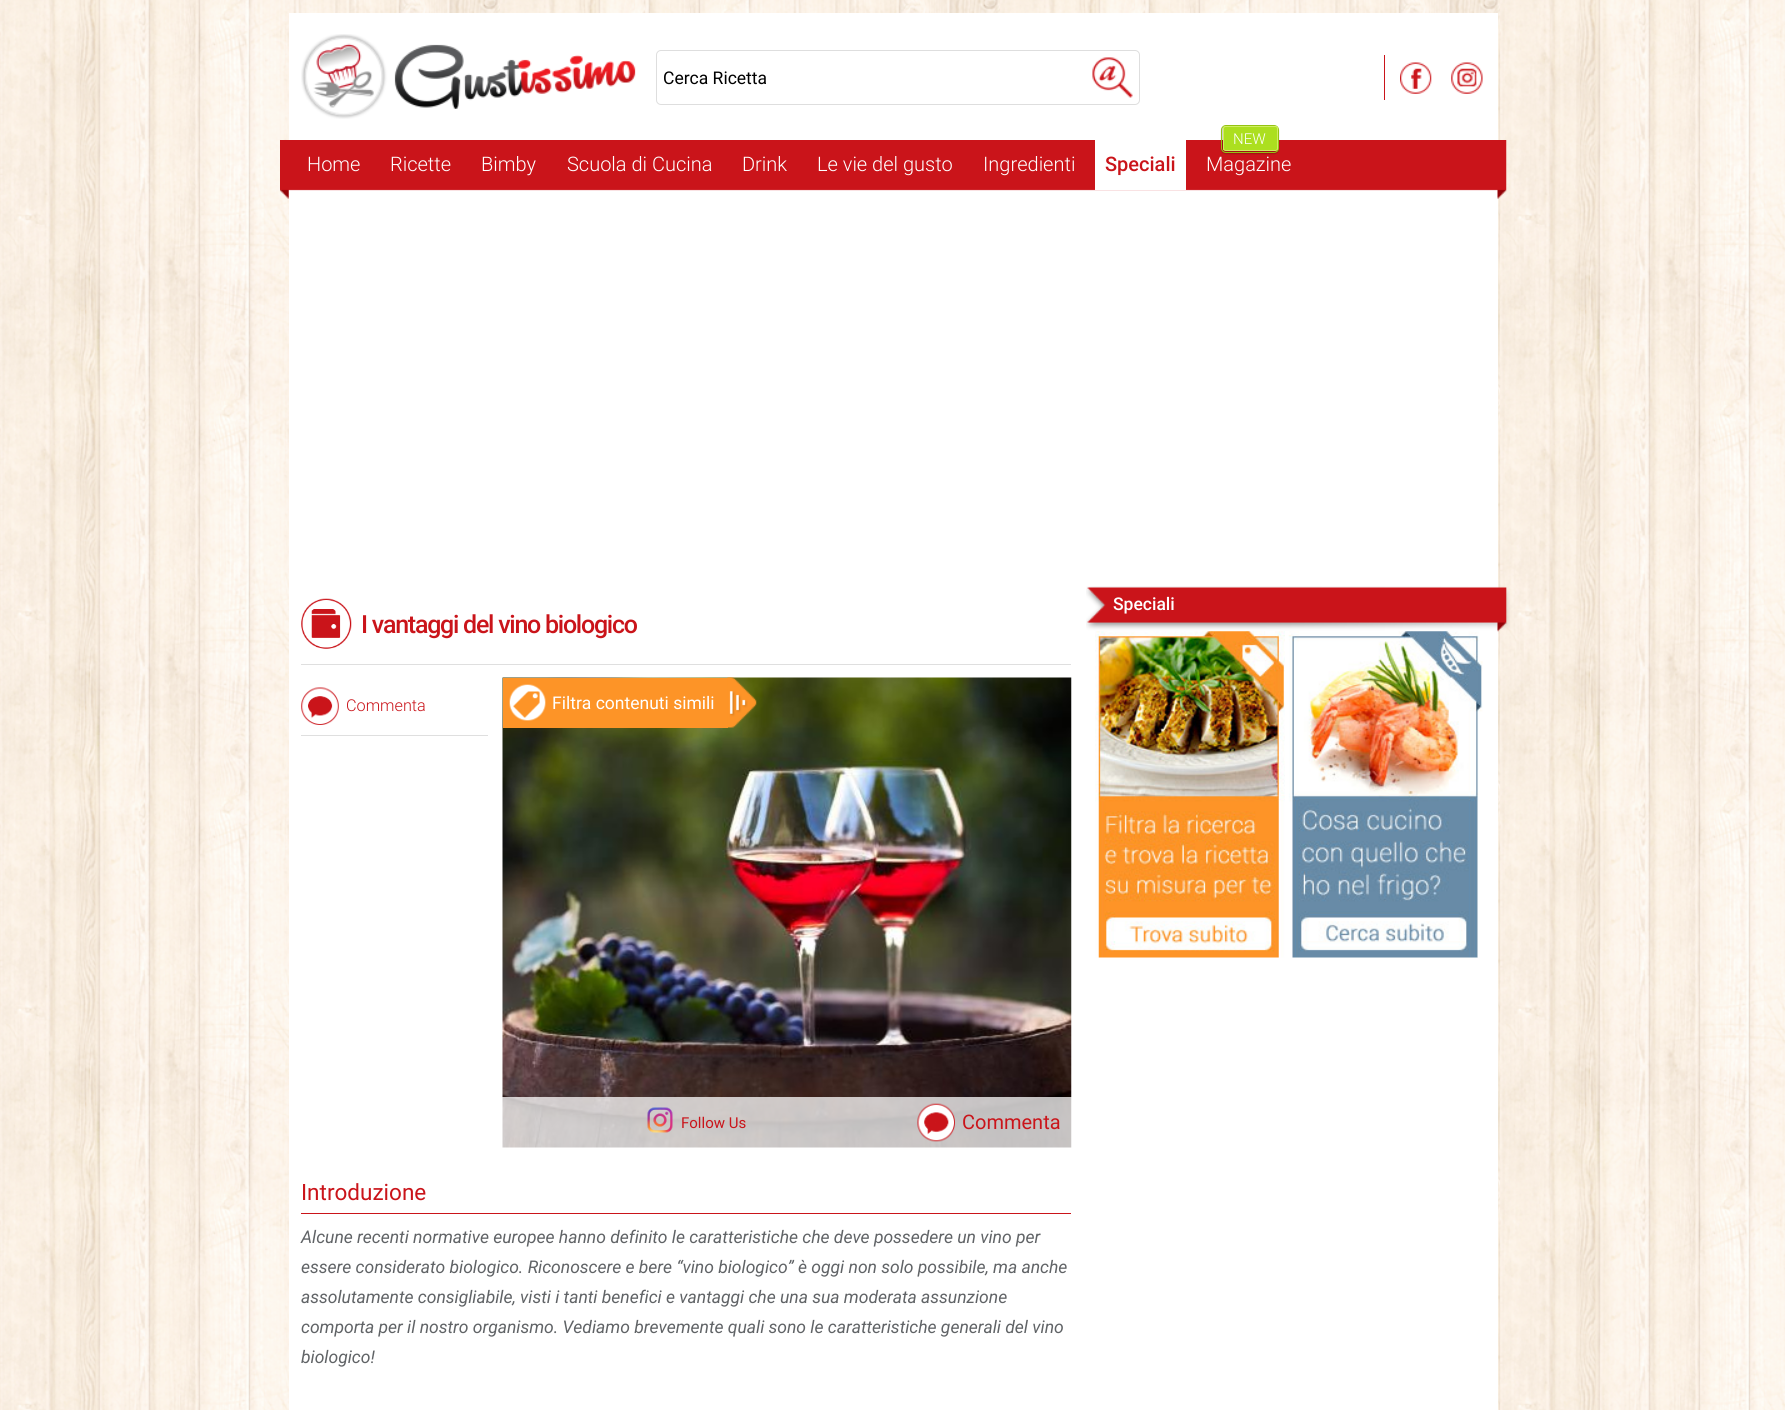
#include <cairo.h>
#include <math.h>
#include <stddef.h>

typedef struct { const char *family; double size; int italic, bold; unsigned color; } style_t;
static cairo_t *ctx;

static void ink(unsigned color) {
    cairo_set_source_rgb(ctx, (color >> 16) / 255.0, (color >> 8 & 255) / 255.0, (color & 255) / 255.0);
}

static void write(double x, double y, const char *s, const style_t *st) {
    cairo_select_font_face(ctx, st->family, st->italic ? CAIRO_FONT_SLANT_ITALIC : CAIRO_FONT_SLANT_NORMAL,
        st->bold ? CAIRO_FONT_WEIGHT_BOLD : CAIRO_FONT_WEIGHT_NORMAL);
    cairo_set_font_size(ctx, st->size);
    ink(st->color);
    cairo_move_to(ctx, x, y);
    cairo_show_text(ctx, s);
}

static void write_spaced(double x, double y, const char *s, double letter, double word) {
    cairo_move_to(ctx, x, y);
    while (*s) {
        char ch[5] = {0};
        int n = 0;
        do ch[n++] = *s++; while ((*s & 0xC0) == 0x80);
        cairo_show_text(ctx, ch);
        cairo_rel_move_to(ctx, letter + word * (*ch == ' '), 0);
    }
}

static void block(double x, double y, double w, double h, unsigned color) {
    ink(color);
    cairo_rectangle(ctx, x, y, w, h);
    cairo_fill(ctx);
}

static void round_path(double x, double y, double w, double h, double r) {
    cairo_new_sub_path(ctx);
    cairo_arc(ctx, x + w - r, y + h - r, r, 0, M_PI / 2);
    cairo_arc(ctx, x + r, y + h - r, r, M_PI / 2, M_PI);
    cairo_arc(ctx, x + r, y + r, r, M_PI, 1.5 * M_PI);
    cairo_arc(ctx, x + w - r, y + r, r, 1.5 * M_PI, 2 * M_PI);
    cairo_close_path(ctx);
}

static void blur_box(double x, double y, double w, double h, double r, double blur, double alpha) {
    cairo_push_group_with_content(ctx, CAIRO_CONTENT_ALPHA);
    cairo_set_operator(ctx, CAIRO_OPERATOR_SOURCE);
    for (int i = 15; i >= -15 && fmin(w, h) + blur * i / 3 > 0; i -= 2) {
        double e = blur * i / 6;
        cairo_set_source_rgba(ctx, 0, 0, 0, alpha * erfc((i - 1) / 8.5) / 2);
        round_path(x - e, y - e, w + 2 * e, h + 2 * e, fmax(0, fmin(r + e + blur * .6, fmin(w, h) / 2 + e)));
        cairo_fill(ctx);
    }
    cairo_pattern_t *soft = cairo_pop_group(ctx);
    cairo_mask(ctx, soft);
    cairo_pattern_destroy(soft);
}

static void paste(const char *path, double x, double y, double w, double h) {
    cairo_surface_t *image = cairo_image_surface_create_from_png(path);
    cairo_save(ctx);
    cairo_set_source_surface(ctx, image, x, y);
    cairo_rectangle(ctx, x, y, w, h);
    cairo_fill(ctx);
    cairo_restore(ctx);
    cairo_surface_destroy(image);
}

static const style_t s1 = {"Roboto", 17.5, 0, 0, 0x000000};
static const style_t s2 = {"Roboto Light", 20, 0, 0, 0xffffff};
static const style_t s3 = {"Roboto Medium", 20, 0, 0, 0xca141a};
static const style_t s4 = {"Roboto Light", 15, 0, 0, 0xffffff};
static const style_t s5 = {"Roboto Medium", 17.5, 0, 0, 0xffffff};
static const style_t s6 = {"Roboto Light", 16.25, 0, 0, 0xca141a};
static const style_t s7 = {"Roboto", 17.5, 0, 0, 0xffffff};
static const style_t s8 = {"Roboto", 15, 0, 0, 0xca141a};
static const style_t s9 = {"Roboto", 20, 0, 0, 0xca141a};
static const style_t s10 = {"Roboto", 22.5, 0, 0, 0xca141a};
static const style_t s11 = {"Roboto", 17.5, 1, 0, 0x606366};

int main(void) {
    cairo_surface_t *surface = cairo_image_surface_create(CAIRO_FORMAT_RGB24, 1785, 1410);
    ctx = cairo_create(surface);
    cairo_font_options_t *options = cairo_font_options_create();
    cairo_font_options_set_hint_metrics(options, CAIRO_HINT_METRICS_OFF);
    cairo_font_options_set_hint_style(options, CAIRO_HINT_STYLE_NONE);
    cairo_set_font_options(ctx, options);
    cairo_set_miter_limit(ctx, 4);
    ink(0xffffff);
    cairo_paint(ctx);
    paste("pic1.png", 0, 0, 1785, 1410);
    block(289, 13, 1209, 1397, 0xffffff);
    paste("pic2.png", 301, 34, 335, 85);
    round_path(656.5, 50.5, 483, 54, 4.5);
    ink(0xdedede);
    cairo_set_line_width(ctx, 1);
    cairo_stroke(ctx);
    write(663, 84, "Cerca Ricetta", &s1);
    paste("pic3.png", 1092, 57, 41, 41);
    block(1384, 55, 1, 45, 0xca141a);
    paste("pic4.png", 1400, 62, 32, 32);
    paste("pic5.png", 1451, 62, 32, 32);
    paste("pic6.png", 280, 140, 1227, 59);
    write(307, 171, "Home", &s2);
    write(390, 171, "Ricette", &s2);
    write(481, 171, "Bimby", &s2);
    write(567, 171, "Scuola di Cucina", &s2);
    write(742, 171, "Drink", &s2);
    write(817, 171, "Le vie del gusto", &s2);
    write(983, 171, "Ingredienti", &s2);
    block(1095, 140, 91, 50, 0xffffff);
    write(1105, 171, "Speciali", &s3);
    ink(0x000000);
    blur_box(1221, 126, 58, 28, 5, 0.5, 0.2);
    round_path(1221.5, 125.5, 57, 27, 4.5);
    ink(0x94c312);
    cairo_stroke(ctx);
    cairo_save(ctx);
    round_path(1223, 126, 55, 25, 2.5);
    cairo_clip(ctx);
    block(1223, 126, 55, 2, 0xacdf1f);
    cairo_restore(ctx);
    block(1223, 128, 55, 22, 0xacdf1f);
    round_path(1223.5, 126.5, 54, 24, 2);
    ink(0xd1ee63);
    cairo_stroke(ctx);
    write(1233, 144, "NEW", &s4);
    write(1206, 171, "Magazine", &s2);
    paste("pic8.png", 1095, 631, 190, 327);
    paste("pic9.png", 1288, 631, 195, 327);
    paste("pic7.png", 1086, 586, 424, 46);
    write(1113, 610, "Speciali", &s5);
    block(301, 664, 770, 1, 0xdfdfdf);
    paste("pic10.png", 301, 598, 51, 51);
    cairo_set_font_size(ctx, 25);
    ink(0xca141a);
    write_spaced(361, 633, "I vantaggi del vino biologico", -1.25, 0);
    block(301, 735, 187, 1, 0xdfdfdf);
    paste("pic11.png", 301, 687, 38, 38);
    write(346, 711, "Commenta", &s6);
    paste("pic12.png", 502, 677, 570, 471);
    block(503, 678, 225, 50, 0xfd9427);
    paste("pic13.png", 509, 684, 37, 37);
    write(552, 709, "Filtra contenuti simili", &s7);
    paste("pic14.png", 727, 677, 30, 51);
    cairo_set_source_rgba(ctx, 1, 1, 1, 0.75);
    cairo_rectangle(ctx, 502, 1097, 570, 51);
    cairo_fill(ctx);
    paste("pic15.png", 647, 1107, 26, 26);
    write(681, 1128, "Follow Us", &s8);
    paste("pic16.png", 917, 1103, 38, 39);
    write(962, 1129, "Commenta", &s9);
    block(301, 1213, 770, 1, 0xca141a);
    write(301, 1200, "Introduzione", &s10);
    write(301, 1243, "Alcune recenti normative europee hanno definito le caratteristiche che deve possedere un vino per", &s11);
    write(301, 1273, "essere considerato biologico. Riconoscere e bere “vino biologico” è oggi non solo possibile, ma anche", &s11);
    write(301, 1303, "assolutamente consigliabile, visti i tanti benefici e vantaggi che una sua moderata assunzione", &s11);
    write(301, 1333, "comporta per il nostro organismo. Vediamo brevemente quali sono le caratteristiche generali del vino", &s11);
    write(301, 1363, "biologico!", &s11);
    cairo_surface_write_to_png(surface, "screenshot.png");
    cairo_font_options_destroy(options);
    cairo_destroy(ctx);
    cairo_surface_destroy(surface);
    return 0;
}
